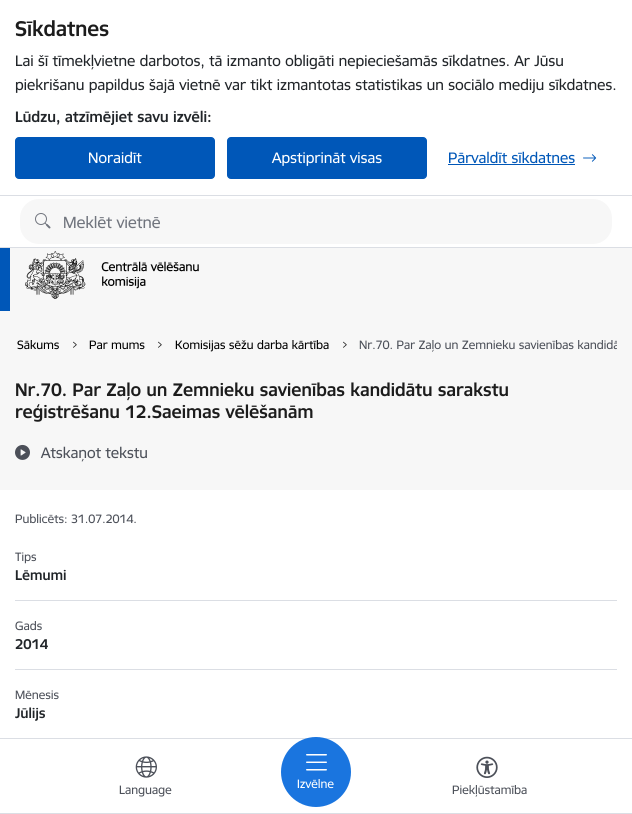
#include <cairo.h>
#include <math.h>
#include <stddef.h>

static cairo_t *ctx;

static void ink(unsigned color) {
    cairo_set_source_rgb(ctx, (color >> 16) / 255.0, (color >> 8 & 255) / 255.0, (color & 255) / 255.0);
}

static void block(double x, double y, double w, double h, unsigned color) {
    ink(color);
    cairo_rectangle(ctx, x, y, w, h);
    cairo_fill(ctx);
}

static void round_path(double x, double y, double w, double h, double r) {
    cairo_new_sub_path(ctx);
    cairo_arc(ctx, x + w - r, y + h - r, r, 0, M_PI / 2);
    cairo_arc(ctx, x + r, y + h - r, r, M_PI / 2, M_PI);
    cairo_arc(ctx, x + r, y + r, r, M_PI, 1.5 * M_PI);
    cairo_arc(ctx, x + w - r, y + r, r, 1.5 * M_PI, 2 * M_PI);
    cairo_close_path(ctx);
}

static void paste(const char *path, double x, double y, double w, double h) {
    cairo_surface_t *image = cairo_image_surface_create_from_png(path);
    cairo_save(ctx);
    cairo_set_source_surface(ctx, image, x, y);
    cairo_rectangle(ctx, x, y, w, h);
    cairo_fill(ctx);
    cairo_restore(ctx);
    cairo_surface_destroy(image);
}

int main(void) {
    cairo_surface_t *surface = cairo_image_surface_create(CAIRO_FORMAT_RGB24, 632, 814);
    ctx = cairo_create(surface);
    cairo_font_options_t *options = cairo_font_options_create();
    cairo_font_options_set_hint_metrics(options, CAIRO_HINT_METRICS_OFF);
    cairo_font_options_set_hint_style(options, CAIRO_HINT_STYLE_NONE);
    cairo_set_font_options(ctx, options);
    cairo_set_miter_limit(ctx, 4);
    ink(0xffffff);
    cairo_paint(ctx);
    block(0, 195, 632, 1, 0xdbdee4);
    paste("pic1.png", 15, 20, 94, 17);
    paste("pic2.png", 16, 54, 547, 16);
    paste("pic3.png", 15, 78, 601, 15);
    paste("pic4.png", 15, 110, 196, 15);
    ink(0x0057b8);
    round_path(15.5, 137.5, 199, 41, 3.5);
    cairo_fill_preserve(ctx);
    cairo_set_line_width(ctx, 1);
    cairo_stroke(ctx);
    paste("pic5.png", 89, 151, 53, 13);
    round_path(227.5, 137.5, 199, 41, 3.5);
    cairo_fill_preserve(ctx);
    cairo_stroke(ctx);
    paste("pic6.png", 271, 152, 111, 14);
    paste("pic7.png", 449, 151, 126, 13);
    paste("pic8.png", 583, 154, 14, 8);
    block(448, 164, 127, 1, 0x0057b8);
    block(0, 247, 632, 1, 0xdbdee4);
    ink(0xf7f7f7);
    round_path(20, 199, 592, 45, 19);
    cairo_fill(ctx);
    paste("pic9.png", 64, 216, 96, 13);
    paste("pic10.png", 35, 213, 16, 16);
    block(0, 738, 632, 1, 0xdbdee4);
    ink(0x1a75df);
    cairo_arc(ctx, 316, 772, 35, 0, 2 * M_PI);
    cairo_fill(ctx);
    paste("pic11.png", 306, 754, 21, 17);
    paste("pic12.png", 297, 779, 37, 10);
    block(0, 813, 632, 1, 0xdbdee4);
    paste("pic13.png", 135, 756, 22, 22);
    paste("pic14.png", 119, 785, 53, 12);
    paste("pic15.png", 476, 756, 22, 22);
    paste("pic16.png", 452, 785, 75, 12);
    block(0, 248, 632, 242, 0xf7f7f7);
    block(0, 248, 10, 63, 0x0057b8);
    paste("pic17.png", 25, 251, 174, 48);
    paste("pic18.png", 17, 340, 42, 10);
    paste("pic19.png", 73, 341, 4, 7);
    paste("pic20.png", 89, 340, 56, 10);
    paste("pic19.png", 158, 341, 4, 7);
    paste("pic21.png", 175, 340, 154, 12);
    paste("pic19.png", 343, 341, 4, 7);
    paste("pic22.png", 359, 340, 258, 12);
    paste("pic23.png", 16, 382, 492, 19);
    paste("pic24.png", 16, 404, 297, 18);
    paste("pic25.png", 15, 444, 15, 16);
    paste("pic26.png", 40, 446, 107, 16);
    paste("pic27.png", 15, 514, 121, 10);
    block(15, 600, 602, 1, 0xdbdee4);
    paste("pic28.png", 15, 552, 22, 12);
    paste("pic29.png", 15, 569, 51, 12);
    block(15, 669, 602, 1, 0xdbdee4);
    paste("pic30.png", 15, 621, 27, 10);
    paste("pic31.png", 15, 639, 33, 11);
    paste("pic32.png", 15, 690, 44, 10);
    paste("pic33.png", 15, 707, 30, 14);
    cairo_surface_write_to_png(surface, "screenshot.png");
    cairo_font_options_destroy(options);
    cairo_destroy(ctx);
    cairo_surface_destroy(surface);
    return 0;
}
